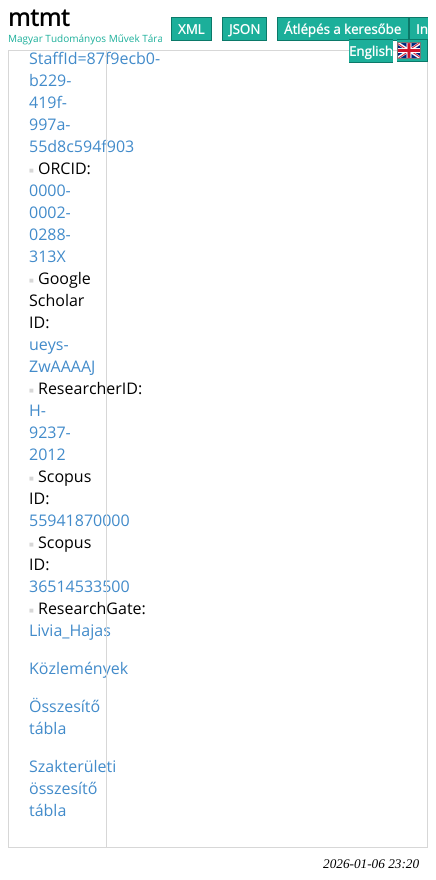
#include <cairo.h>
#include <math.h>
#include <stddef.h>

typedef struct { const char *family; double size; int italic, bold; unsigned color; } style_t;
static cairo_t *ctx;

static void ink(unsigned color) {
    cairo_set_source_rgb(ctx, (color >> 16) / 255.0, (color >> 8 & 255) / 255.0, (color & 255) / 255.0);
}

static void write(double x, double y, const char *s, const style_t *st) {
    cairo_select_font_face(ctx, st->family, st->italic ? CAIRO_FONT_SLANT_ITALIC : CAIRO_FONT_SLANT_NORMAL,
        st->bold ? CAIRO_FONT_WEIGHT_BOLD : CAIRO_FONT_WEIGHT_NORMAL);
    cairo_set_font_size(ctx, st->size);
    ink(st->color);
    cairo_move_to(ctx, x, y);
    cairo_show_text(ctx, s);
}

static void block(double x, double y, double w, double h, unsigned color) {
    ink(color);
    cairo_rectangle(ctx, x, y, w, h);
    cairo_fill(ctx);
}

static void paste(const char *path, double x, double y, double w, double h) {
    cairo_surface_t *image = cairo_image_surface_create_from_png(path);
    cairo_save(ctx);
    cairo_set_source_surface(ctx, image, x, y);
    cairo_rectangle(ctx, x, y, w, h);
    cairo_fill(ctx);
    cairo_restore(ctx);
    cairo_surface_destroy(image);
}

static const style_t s1 = {"Open Sans", 24, 0, 1, 0x000000};
static const style_t s2 = {"Open Sans", 10, 0, 0, 0x1caf9a};
static const style_t s3 = {"Open Sans", 13.25, 0, 1, 0xffffff};
static const style_t s4 = {"Open Sans", 16, 0, 0, 0x428bca};
static const style_t s5 = {"Liberation Serif", 8, 0, 0, 0xd7d7d7};
static const style_t s6 = {"Open Sans", 16, 0, 0, 0x000000};
static const style_t s7 = {"Liberation Serif", 13.25, 1, 0, 0x000000};

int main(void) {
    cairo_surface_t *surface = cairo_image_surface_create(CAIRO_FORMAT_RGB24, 436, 880);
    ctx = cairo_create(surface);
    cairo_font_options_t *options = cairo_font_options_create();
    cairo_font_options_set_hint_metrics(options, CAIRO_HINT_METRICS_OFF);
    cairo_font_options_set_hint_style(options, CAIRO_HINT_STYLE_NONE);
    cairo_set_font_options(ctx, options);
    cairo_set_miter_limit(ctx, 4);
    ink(0xffffff);
    cairo_paint(ctx);
    cairo_rectangle(ctx, 8.5, -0.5, 419, 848);
    ink(0xd7d7d7);
    cairo_set_line_width(ctx, 1);
    cairo_stroke(ctx);
    block(8, 0, 420, 50, 0xffffff);
    block(8, 50, 389, 1, 0xd7d7d7);
    write(8, 26, "mtmt", &s1);
    write(8, 42, "Magyar Tudományos Művek Tára", &s2);
    cairo_rectangle(ctx, 171.5, 17.5, 40, 23);
    cairo_fill_preserve(ctx);
    ink(0x0b7969);
    cairo_stroke(ctx);
    write(178, 34, "XML", &s3);
    ink(0x1caf9a);
    cairo_rectangle(ctx, 222.5, 17.5, 44, 23);
    cairo_fill_preserve(ctx);
    ink(0x0b7969);
    cairo_stroke(ctx);
    write(229, 34, "JSON", &s3);
    ink(0x1caf9a);
    cairo_rectangle(ctx, 277.5, 17.5, 131, 23);
    cairo_fill_preserve(ctx);
    ink(0x0b7969);
    cairo_stroke(ctx);
    write(284, 34, "Átlépés a keresőbe", &s3);
    block(410, 18, 18, 21, 0x1caf9a);
    write(416, 34, "In", &s3);
    block(409, 17, 19, 1, 0x0b7969);
    block(409, 17, 1, 24, 0x0b7969);
    block(397, 39, 31, 1, 0x0b7969);
    block(349, 40, 44, 22, 0x1caf9a);
    write(349, 56, "English", &s3);
    block(349, 39, 44, 1, 0x0b7969);
    block(349, 62, 44, 1, 0x0b7969);
    block(397, 40, 30, 21, 0x1caf9a);
    block(427, 39, 1, 23, 0x0b7969);
    block(397, 61, 31, 1, 0x0b7969);
    cairo_rectangle(ctx, 397.5, 42.5, 23, 16);
    ink(0x777777);
    cairo_stroke(ctx);
    paste("pic1.png", 398, 43, 22, 15);
    write(29, 64, "StaffId=87f9ecb0-", &s4);
    write(29, 86, "b229-", &s4);
    write(29, 108, "419f-", &s4);
    write(29, 130, "997a-", &s4);
    write(29, 152, "55d8c594f903", &s4);
    write(29, 173, "■", &s5);
    write(38, 174, "ORCID:", &s6);
    write(29, 196, "0000-", &s4);
    write(29, 218, "0002-", &s4);
    write(29, 240, "0288-", &s4);
    write(29, 262, "313X", &s4);
    write(29, 283, "■", &s5);
    write(38, 284, "Google", &s6);
    write(29, 306, "Scholar", &s6);
    write(29, 328, "ID:", &s6);
    write(29, 350, "ueys-", &s4);
    write(29, 372, "ZwAAAAJ", &s4);
    write(29, 393, "■", &s5);
    write(38, 394, "ResearcherID:", &s6);
    write(29, 416, "H-", &s4);
    write(29, 438, "9237-", &s4);
    write(29, 460, "2012", &s4);
    write(29, 481, "■", &s5);
    write(38, 482, "Scopus", &s6);
    write(29, 504, "ID:", &s6);
    write(29, 526, "55941870000", &s4);
    write(29, 547, "■", &s5);
    write(38, 548, "Scopus", &s6);
    write(29, 570, "ID:", &s6);
    write(29, 592, "36514533500", &s4);
    write(29, 613, "■", &s5);
    write(38, 614, "ResearchGate:", &s6);
    write(29, 636, "Livia_Hajas", &s4);
    write(29, 674, "Közlemények", &s4);
    write(29, 712, "Összesítő", &s4);
    write(29, 734, "tábla", &s4);
    write(29, 772, "Szakterületi", &s4);
    write(29, 794, "összesítő", &s4);
    write(29, 816, "tábla", &s4);
    block(106, 51, 1, 796, 0xd7d7d7);
    write(323, 868, "2026-01-06 23:20", &s7);
    cairo_surface_write_to_png(surface, "screenshot.png");
    cairo_font_options_destroy(options);
    cairo_destroy(ctx);
    cairo_surface_destroy(surface);
    return 0;
}
